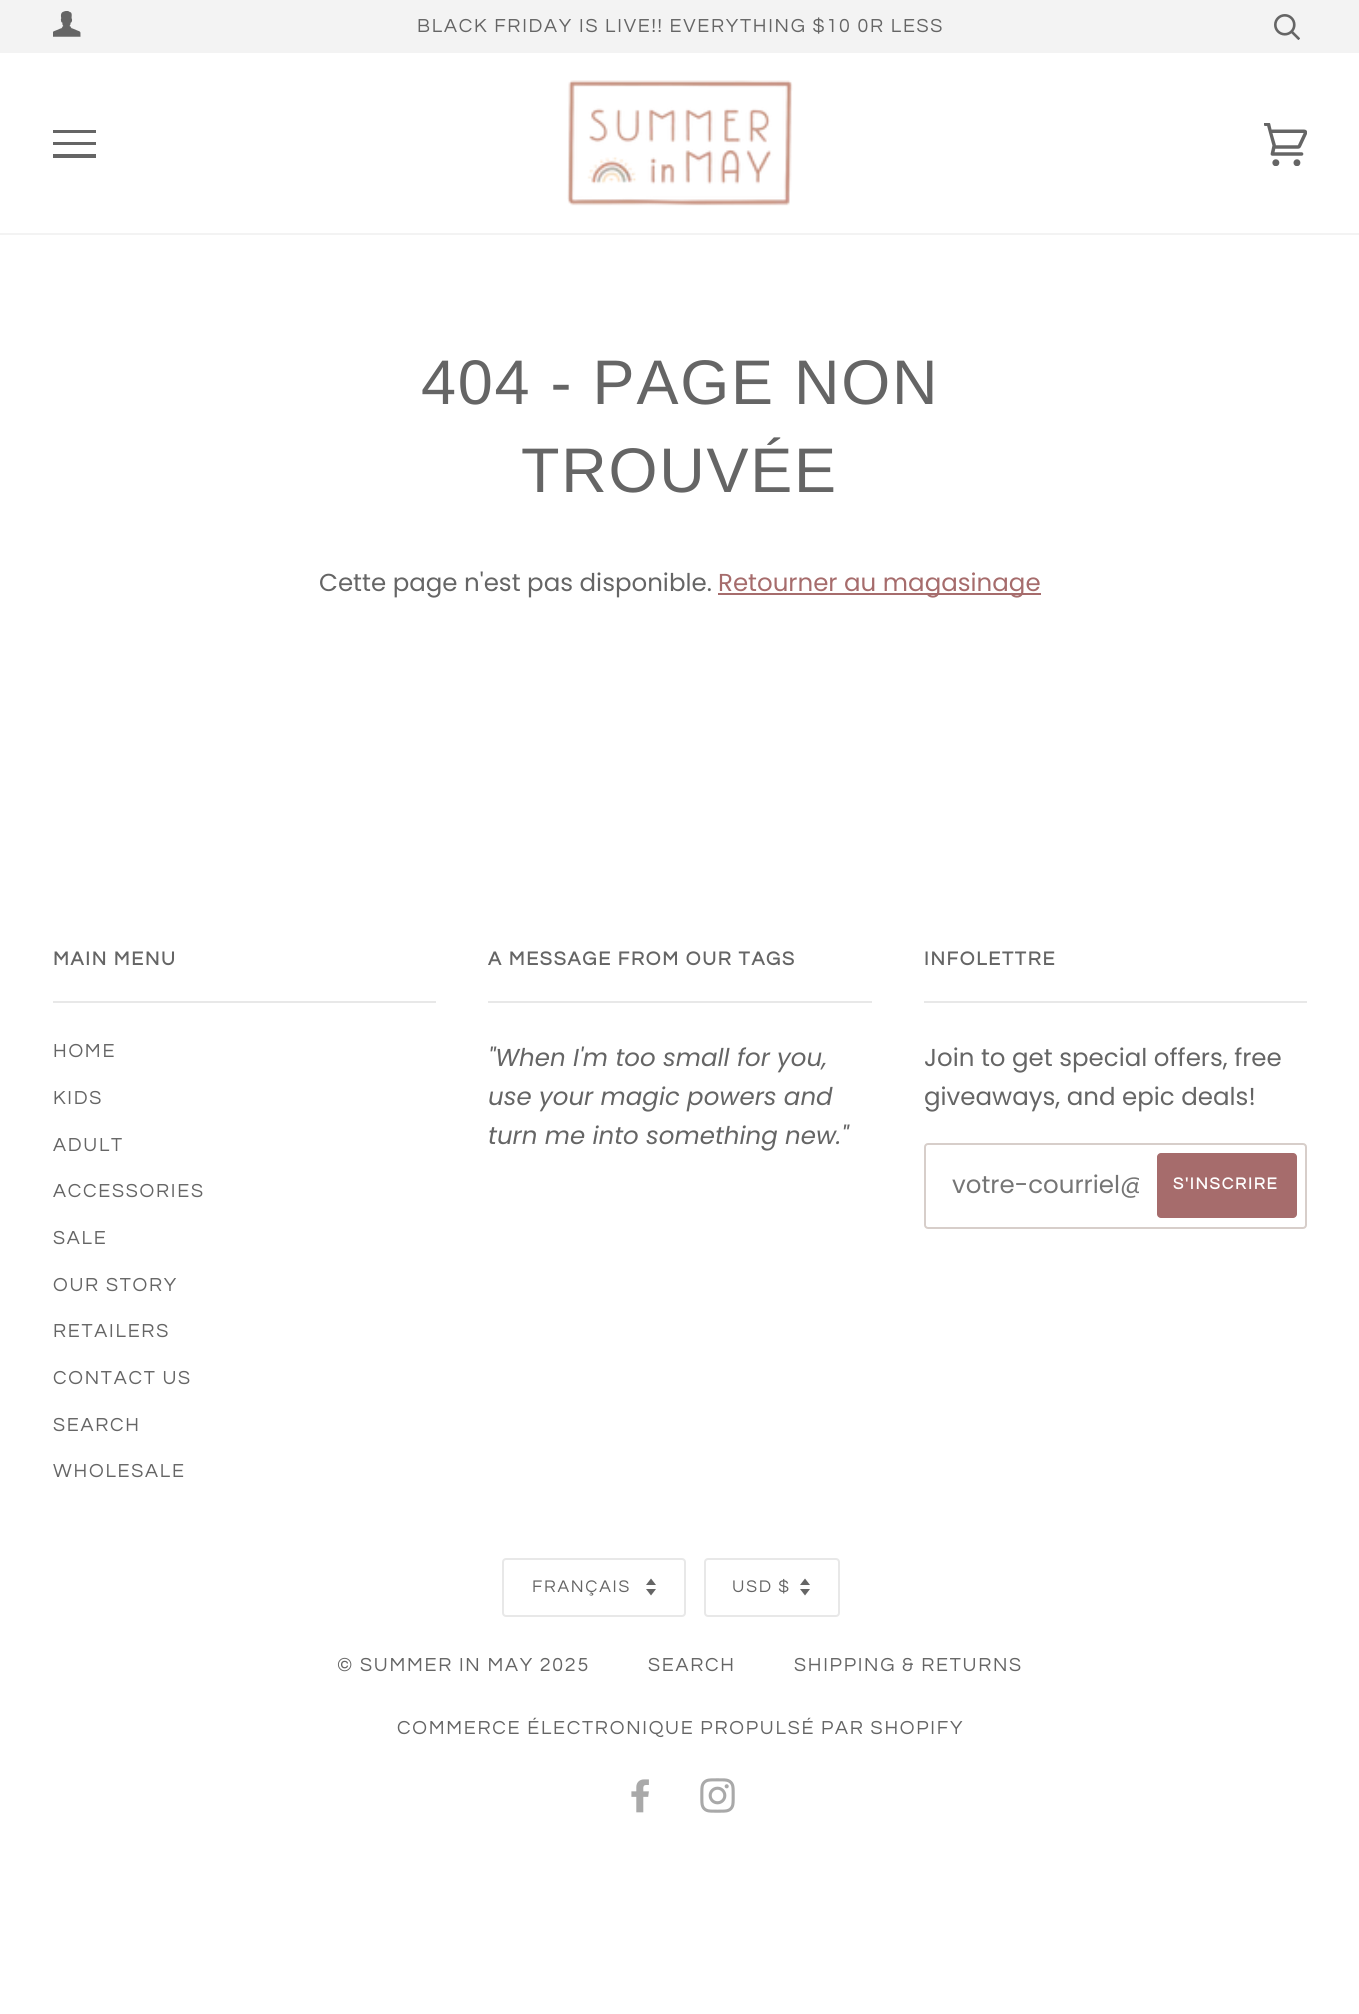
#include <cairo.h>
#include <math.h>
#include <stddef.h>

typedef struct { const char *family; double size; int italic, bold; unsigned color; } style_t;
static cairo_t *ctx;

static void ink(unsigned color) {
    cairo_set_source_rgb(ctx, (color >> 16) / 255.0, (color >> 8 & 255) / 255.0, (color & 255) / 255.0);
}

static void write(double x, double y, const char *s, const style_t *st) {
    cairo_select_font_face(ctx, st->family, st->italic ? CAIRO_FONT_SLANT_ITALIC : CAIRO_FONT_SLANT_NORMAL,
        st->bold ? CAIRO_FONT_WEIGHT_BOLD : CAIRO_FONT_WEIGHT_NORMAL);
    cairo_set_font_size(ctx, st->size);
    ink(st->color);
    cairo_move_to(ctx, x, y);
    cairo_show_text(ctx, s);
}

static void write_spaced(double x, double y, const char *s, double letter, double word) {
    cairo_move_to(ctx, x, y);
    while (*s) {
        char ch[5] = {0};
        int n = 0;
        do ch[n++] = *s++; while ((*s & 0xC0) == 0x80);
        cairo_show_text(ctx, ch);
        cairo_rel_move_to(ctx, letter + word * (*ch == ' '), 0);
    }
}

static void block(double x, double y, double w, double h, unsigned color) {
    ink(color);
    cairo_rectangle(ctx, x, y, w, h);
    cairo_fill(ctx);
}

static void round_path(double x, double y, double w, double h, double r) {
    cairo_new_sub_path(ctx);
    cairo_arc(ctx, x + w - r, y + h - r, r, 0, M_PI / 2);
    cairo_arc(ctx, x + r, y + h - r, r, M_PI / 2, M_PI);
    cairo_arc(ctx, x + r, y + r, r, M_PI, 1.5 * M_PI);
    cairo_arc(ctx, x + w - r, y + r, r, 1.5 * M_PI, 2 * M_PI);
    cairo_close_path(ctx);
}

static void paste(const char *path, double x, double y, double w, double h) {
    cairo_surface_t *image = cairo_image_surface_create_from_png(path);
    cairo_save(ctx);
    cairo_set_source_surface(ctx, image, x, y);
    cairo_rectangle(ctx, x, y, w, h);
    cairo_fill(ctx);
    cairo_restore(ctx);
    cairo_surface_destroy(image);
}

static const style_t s1 = {"Poppins", 24.5, 0, 0, 0x656565};
static const style_t s2 = {"Poppins", 24.5, 0, 0, 0xa66c6c};
static const style_t s3 = {"Poppins", 24.5, 1, 0, 0x656565};
static const style_t s4 = {"Poppins", 24.5, 0, 0, 0x757575};

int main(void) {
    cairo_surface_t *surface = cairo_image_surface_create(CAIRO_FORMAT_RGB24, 1359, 2014);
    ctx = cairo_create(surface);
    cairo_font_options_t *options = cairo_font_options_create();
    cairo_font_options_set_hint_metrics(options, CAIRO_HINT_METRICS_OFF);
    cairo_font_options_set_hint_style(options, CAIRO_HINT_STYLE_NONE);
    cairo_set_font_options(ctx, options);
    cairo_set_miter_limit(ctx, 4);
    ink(0xffffff);
    cairo_paint(ctx);
    block(0, 0, 1359, 53, 0xf3f3f3);
    paste("pic1.png", 53, 11, 28, 26);
    cairo_select_font_face(ctx, "Questrial", CAIRO_FONT_SLANT_NORMAL, CAIRO_FONT_WEIGHT_NORMAL);
    cairo_set_font_size(ctx, 19.6);
    ink(0x656565);
    write_spaced(417, 32, "BLACK FRIDAY IS LIVE!! EVERYTHING $10 0R LESS", 1.75, 0);
    paste("pic2.png", 1274, 14, 26, 26);
    block(0, 233, 1359, 2, 0xf3f3f3);
    cairo_save(ctx);
    cairo_rectangle(ctx, 53, 123, 43, 43);
    cairo_clip(ctx);
    ink(0x656565);
    cairo_new_path(ctx);
    cairo_move_to(ctx, 52, 130);
    cairo_line_to(ctx, 96, 130);
    cairo_line_to(ctx, 96, 133);
    cairo_line_to(ctx, 52, 133);
    cairo_close_path(ctx);
    cairo_move_to(ctx, 52, 142);
    cairo_line_to(ctx, 96, 142);
    cairo_line_to(ctx, 96, 145);
    cairo_line_to(ctx, 52, 145);
    cairo_close_path(ctx);
    cairo_move_to(ctx, 52, 154);
    cairo_line_to(ctx, 96, 154);
    cairo_line_to(ctx, 96, 158);
    cairo_line_to(ctx, 52, 158);
    cairo_close_path(ctx);
    cairo_fill(ctx);
    cairo_restore(ctx);
    paste("pic3.png", 567, 80, 226, 126);
    paste("pic4.png", 1264, 123, 43, 43);
    cairo_select_font_face(ctx, "Liberation Sans", CAIRO_FONT_SLANT_NORMAL, CAIRO_FONT_WEIGHT_NORMAL);
    cairo_set_font_size(ctx, 63);
    ink(0x656565);
    write_spaced(421, 404, "404 - PAGE NON", 1.75, 0);
    write_spaced(521, 492, "TROUVÉE", 1.75, 0);
    write(319, 591, "Cette page n'est pas disponible.", &s1);
    block(718, 593, 323, 2, 0xa66c6c);
    write(718, 591, "Retourner au magasinage", &s2);
    cairo_select_font_face(ctx, "Questrial", CAIRO_FONT_SLANT_NORMAL, CAIRO_FONT_WEIGHT_BOLD);
    cairo_set_font_size(ctx, 19.6);
    ink(0x656565);
    write_spaced(53, 965, "MAIN MENU", 1.75, 0);
    block(53, 1001, 383, 2, 0xe8e8e8);
    cairo_select_font_face(ctx, "Questrial", CAIRO_FONT_SLANT_NORMAL, CAIRO_FONT_WEIGHT_NORMAL);
    ink(0x656565);
    write_spaced(53, 1057, "HOME", 1.75, 0);
    write_spaced(53, 1104, "KIDS", 1.75, 0);
    write_spaced(53, 1151, "ADULT", 1.75, 0);
    write_spaced(53, 1197, "ACCESSORIES", 1.75, 0);
    write_spaced(53, 1244, "SALE", 1.75, 0);
    write_spaced(53, 1291, "OUR STORY", 1.75, 0);
    write_spaced(53, 1337, "RETAILERS", 1.75, 0);
    write_spaced(53, 1384, "CONTACT US", 1.75, 0);
    write_spaced(53, 1431, "SEARCH", 1.75, 0);
    write_spaced(53, 1477, "WHOLESALE", 1.75, 0);
    cairo_select_font_face(ctx, "Questrial", CAIRO_FONT_SLANT_NORMAL, CAIRO_FONT_WEIGHT_BOLD);
    write_spaced(488, 965, "A MESSAGE FROM OUR TAGS", 1.75, 0);
    block(488, 1001, 384, 2, 0xe8e8e8);
    write(488, 1066, "\"When I'm too small for you,", &s3);
    write(488, 1105, "use your magic powers and", &s3);
    write(488, 1144, "turn me into something new.\"", &s3);
    cairo_select_font_face(ctx, "Questrial", CAIRO_FONT_SLANT_NORMAL, CAIRO_FONT_WEIGHT_BOLD);
    cairo_set_font_size(ctx, 19.6);
    write_spaced(924, 965, "INFOLETTRE", 1.75, 0);
    block(924, 1001, 383, 2, 0xe8e8e8);
    write(924, 1066, "Join to get special offers, free", &s1);
    write(924, 1105, "giveaways, and epic deals!", &s1);
    round_path(925, 1144, 381, 84, 3);
    ink(0xd7ceca);
    cairo_stroke(ctx);
    cairo_save(ctx);
    cairo_rectangle(ctx, 952, 1167, 187, 37);
    cairo_clip(ctx);
    write(952, 1193, "votre-courriel@", &s4);
    cairo_restore(ctx);
    ink(0xa66c6c);
    round_path(1157, 1153, 140, 65, 4);
    cairo_fill(ctx);
    cairo_select_font_face(ctx, "Questrial", CAIRO_FONT_SLANT_NORMAL, CAIRO_FONT_WEIGHT_BOLD);
    cairo_set_font_size(ctx, 16.75);
    ink(0xffffff);
    write_spaced(1173, 1189, "S'INSCRIRE", 1.75, 0);
    round_path(503, 1559, 182, 57, 3);
    ink(0xe8e8e8);
    cairo_stroke(ctx);
    cairo_select_font_face(ctx, "Questrial", CAIRO_FONT_SLANT_NORMAL, CAIRO_FONT_WEIGHT_NORMAL);
    cairo_set_font_size(ctx, 17.5);
    ink(0x656565);
    write_spaced(532, 1592, "FRANÇAIS", 1.75, 0);
    cairo_new_path(ctx);
    cairo_move_to(ctx, 646, 1589);
    cairo_line_to(ctx, 651, 1595.5);
    cairo_line_to(ctx, 656, 1589);
    cairo_close_path(ctx);
    cairo_move_to(ctx, 651, 1578.5);
    cairo_line_to(ctx, 646, 1585);
    cairo_line_to(ctx, 656, 1585);
    cairo_close_path(ctx);
    cairo_fill(ctx);
    round_path(705, 1559, 134, 57, 3);
    ink(0xe8e8e8);
    cairo_stroke(ctx);
    ink(0x656565);
    write_spaced(732, 1592, "USD $", 1.75, 0);
    cairo_new_path(ctx);
    cairo_move_to(ctx, 800, 1589);
    cairo_line_to(ctx, 805, 1595.5);
    cairo_line_to(ctx, 810, 1589);
    cairo_close_path(ctx);
    cairo_move_to(ctx, 805, 1578.5);
    cairo_line_to(ctx, 800, 1585);
    cairo_line_to(ctx, 810, 1585);
    cairo_close_path(ctx);
    cairo_fill(ctx);
    cairo_set_font_size(ctx, 19.6);
    write_spaced(337, 1671, "© SUMMER IN MAY 2025", 1.75, 0);
    write_spaced(648, 1671, "SEARCH", 1.75, 0);
    write_spaced(794, 1671, "SHIPPING & RETURNS", 1.75, 0);
    write_spaced(397, 1734, "COMMERCE ÉLECTRONIQUE PROPULSÉ PAR SHOPIFY", 1.75, 0);
    paste("pic5.png", 631, 1779, 18, 34);
    paste("pic6.png", 700, 1778, 35, 35);
    cairo_surface_write_to_png(surface, "screenshot.png");
    cairo_font_options_destroy(options);
    cairo_destroy(ctx);
    cairo_surface_destroy(surface);
    return 0;
}
